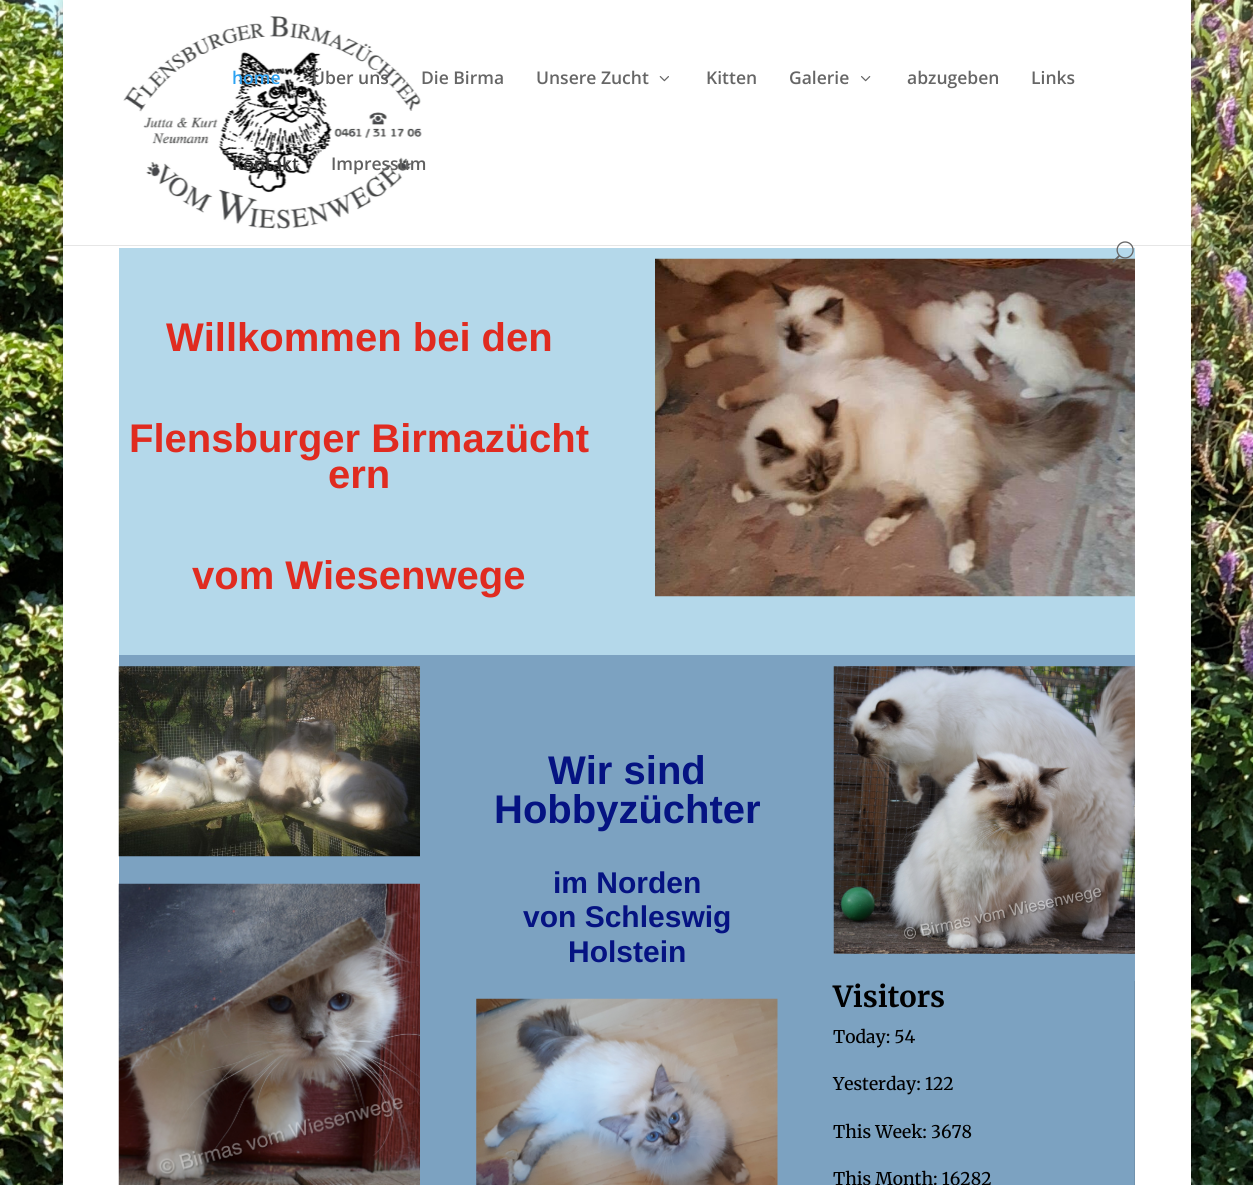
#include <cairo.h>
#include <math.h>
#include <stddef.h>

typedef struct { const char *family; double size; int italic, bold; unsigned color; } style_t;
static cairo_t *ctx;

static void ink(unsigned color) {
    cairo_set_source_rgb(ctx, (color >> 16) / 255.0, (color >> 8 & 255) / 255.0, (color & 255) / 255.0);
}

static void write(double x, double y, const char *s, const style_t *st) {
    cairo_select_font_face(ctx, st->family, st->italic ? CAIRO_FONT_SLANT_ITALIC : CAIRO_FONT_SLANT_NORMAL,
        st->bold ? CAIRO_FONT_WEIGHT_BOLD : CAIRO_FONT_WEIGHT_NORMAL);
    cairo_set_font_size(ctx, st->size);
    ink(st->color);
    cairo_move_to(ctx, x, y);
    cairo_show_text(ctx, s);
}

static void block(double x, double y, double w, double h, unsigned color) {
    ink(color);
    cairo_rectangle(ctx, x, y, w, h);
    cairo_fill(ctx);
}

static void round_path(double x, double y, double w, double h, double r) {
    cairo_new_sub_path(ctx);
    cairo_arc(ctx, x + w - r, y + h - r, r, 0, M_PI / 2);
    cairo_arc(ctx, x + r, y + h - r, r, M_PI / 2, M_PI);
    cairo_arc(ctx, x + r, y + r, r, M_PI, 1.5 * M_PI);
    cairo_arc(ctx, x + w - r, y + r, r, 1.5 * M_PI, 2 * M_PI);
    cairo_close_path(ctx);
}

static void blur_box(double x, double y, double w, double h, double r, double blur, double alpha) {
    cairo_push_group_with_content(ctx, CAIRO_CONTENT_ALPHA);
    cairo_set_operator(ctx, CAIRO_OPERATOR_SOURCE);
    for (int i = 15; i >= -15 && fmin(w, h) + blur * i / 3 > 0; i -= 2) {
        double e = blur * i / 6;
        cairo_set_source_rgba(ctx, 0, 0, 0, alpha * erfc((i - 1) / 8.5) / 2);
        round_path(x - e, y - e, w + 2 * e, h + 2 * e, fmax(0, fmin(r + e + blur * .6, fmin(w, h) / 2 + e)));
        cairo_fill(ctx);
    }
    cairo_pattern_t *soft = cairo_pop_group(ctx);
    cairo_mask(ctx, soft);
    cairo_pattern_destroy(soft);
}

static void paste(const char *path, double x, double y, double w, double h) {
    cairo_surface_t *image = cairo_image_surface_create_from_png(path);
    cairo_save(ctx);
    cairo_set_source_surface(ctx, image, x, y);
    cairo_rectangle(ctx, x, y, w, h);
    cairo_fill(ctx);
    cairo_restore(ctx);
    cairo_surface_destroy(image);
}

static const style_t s1 = {"Open Sans SemiBold", 17.5, 0, 0, 0x2ea3f2};
static const style_t s2 = {"Open Sans SemiBold", 17.5, 0, 0, 0x606060};
static const style_t s3 = {"Open Sans SemiBold", 17.5, 0, 0, 0x666666};
static const style_t s4 = {"Open Sans SemiBold", 17.5, 0, 0, 0x363636};
static const style_t s5 = {"Liberation Sans", 40, 0, 1, 0xe02b20};
static const style_t s6 = {"Liberation Sans", 40, 0, 1, 0x051382};
static const style_t s7 = {"Liberation Sans", 30, 0, 1, 0x051382};
static const style_t s8 = {"Merriweather", 29, 0, 1, 0x000000};
static const style_t s9 = {"Merriweather Medium", 17.5, 0, 0, 0x000000};

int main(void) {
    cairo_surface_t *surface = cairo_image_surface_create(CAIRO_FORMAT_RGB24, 1253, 1185);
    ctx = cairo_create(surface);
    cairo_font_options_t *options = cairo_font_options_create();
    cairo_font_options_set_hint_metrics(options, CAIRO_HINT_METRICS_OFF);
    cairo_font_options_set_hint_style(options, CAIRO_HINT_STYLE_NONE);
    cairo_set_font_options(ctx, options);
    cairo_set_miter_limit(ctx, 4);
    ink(0xffffff);
    cairo_paint(ctx);
    paste("pic1.png", 0, 0, 1253, 1185);
    ink(0x000000);
    blur_box(63, 0, 1128, 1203, 0, 6, 0.2);
    block(63, 245, 1128, 1, 0xe6e6e6);
    block(63, 0, 1128, 245, 0xffffff);
    paste("pic2.png", 123, 16, 299, 213);
    write(232, 84, "home", &s1);
    write(312, 84, "Über uns", &s2);
    write(421, 84, "Die Birma", &s3);
    write(536, 84, "Unsere Zucht", &s3);
    paste("pic3.png", 659, 76, 10, 6);
    write(706, 84, "Kitten", &s3);
    write(789, 84, "Galerie", &s3);
    paste("pic4.png", 861, 76, 10, 6);
    write(907, 84, "abzugeben", &s3);
    write(1031, 84, "Links", &s3);
    write(232, 170, "Kontakt", &s4);
    write(331, 170, "Impressum", &s2);
    block(63, 246, 1128, 939, 0xffffff);
    block(119, 248, 1016, 407, 0xb4d8ea);
    paste("pic6.png", 655, 258, 480, 339);
    paste("pic5.png", 1112, 241, 22, 22);
    write(166, 351, "Willkommen bei den", &s5);
    write(129, 452, "Flensburger Birmazücht", &s5);
    write(328, 488, "ern", &s5);
    write(192, 589, "vom Wiesenwege", &s5);
    block(119, 655, 1016, 530, 0x7ca2c1);
    paste("pic7.png", 118, 666, 302, 191);
    paste("pic8.png", 118, 883, 302, 302);
    write(548, 784, "Wir sind", &s6);
    write(494, 823, "Hobbyzüchter", &s6);
    write(553, 893, "im Norden", &s7);
    write(523, 927, "von Schleswig", &s7);
    write(568, 962, "Holstein", &s7);
    paste("pic9.png", 476, 998, 302, 187);
    paste("pic10.png", 833, 666, 302, 288);
    block(1134, 981, 1, 204, 0x7092ae);
    write(833, 1007, "Visitors", &s8);
    write(833, 1043, "Today: 54", &s9);
    write(833, 1090, "Yesterday: 122", &s9);
    write(833, 1138, "This Week: 3678", &s9);
    write(833, 1185, "This Month: 16282", &s9);
    cairo_surface_write_to_png(surface, "screenshot.png");
    cairo_font_options_destroy(options);
    cairo_destroy(ctx);
    cairo_surface_destroy(surface);
    return 0;
}
